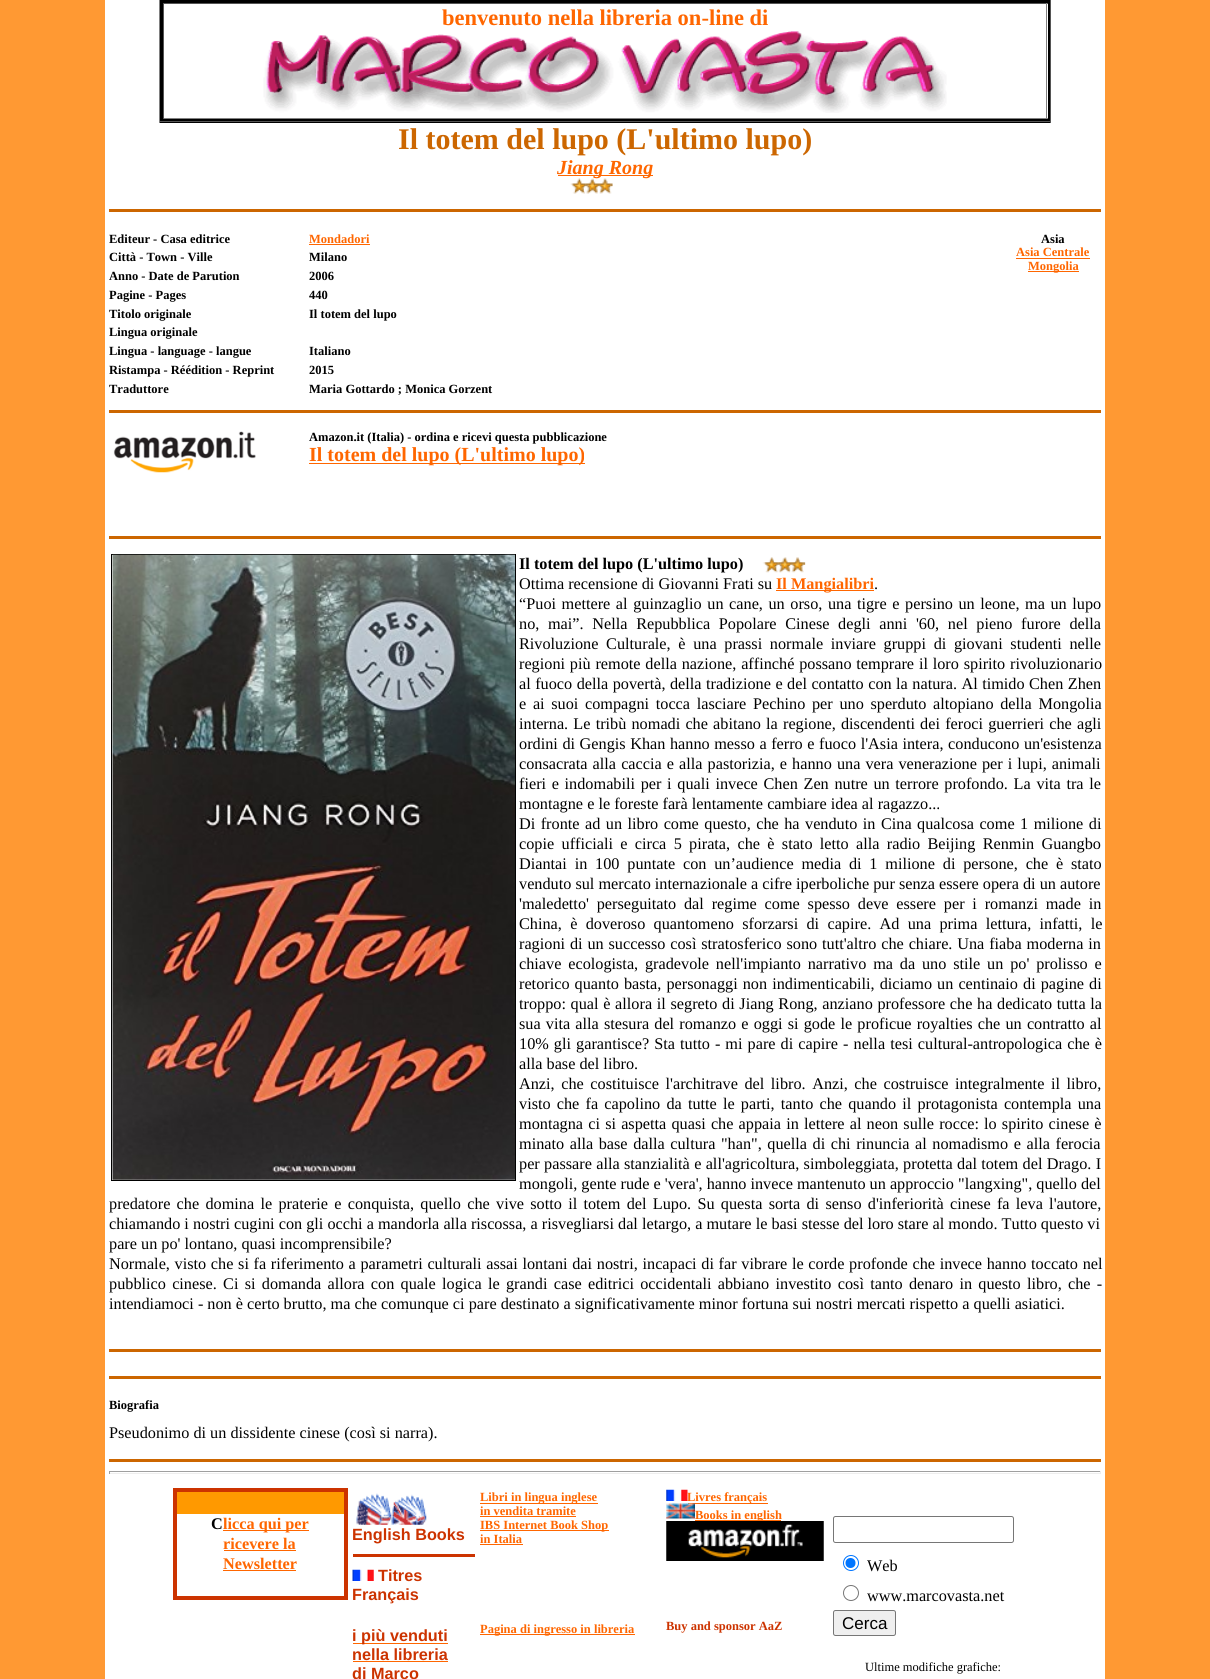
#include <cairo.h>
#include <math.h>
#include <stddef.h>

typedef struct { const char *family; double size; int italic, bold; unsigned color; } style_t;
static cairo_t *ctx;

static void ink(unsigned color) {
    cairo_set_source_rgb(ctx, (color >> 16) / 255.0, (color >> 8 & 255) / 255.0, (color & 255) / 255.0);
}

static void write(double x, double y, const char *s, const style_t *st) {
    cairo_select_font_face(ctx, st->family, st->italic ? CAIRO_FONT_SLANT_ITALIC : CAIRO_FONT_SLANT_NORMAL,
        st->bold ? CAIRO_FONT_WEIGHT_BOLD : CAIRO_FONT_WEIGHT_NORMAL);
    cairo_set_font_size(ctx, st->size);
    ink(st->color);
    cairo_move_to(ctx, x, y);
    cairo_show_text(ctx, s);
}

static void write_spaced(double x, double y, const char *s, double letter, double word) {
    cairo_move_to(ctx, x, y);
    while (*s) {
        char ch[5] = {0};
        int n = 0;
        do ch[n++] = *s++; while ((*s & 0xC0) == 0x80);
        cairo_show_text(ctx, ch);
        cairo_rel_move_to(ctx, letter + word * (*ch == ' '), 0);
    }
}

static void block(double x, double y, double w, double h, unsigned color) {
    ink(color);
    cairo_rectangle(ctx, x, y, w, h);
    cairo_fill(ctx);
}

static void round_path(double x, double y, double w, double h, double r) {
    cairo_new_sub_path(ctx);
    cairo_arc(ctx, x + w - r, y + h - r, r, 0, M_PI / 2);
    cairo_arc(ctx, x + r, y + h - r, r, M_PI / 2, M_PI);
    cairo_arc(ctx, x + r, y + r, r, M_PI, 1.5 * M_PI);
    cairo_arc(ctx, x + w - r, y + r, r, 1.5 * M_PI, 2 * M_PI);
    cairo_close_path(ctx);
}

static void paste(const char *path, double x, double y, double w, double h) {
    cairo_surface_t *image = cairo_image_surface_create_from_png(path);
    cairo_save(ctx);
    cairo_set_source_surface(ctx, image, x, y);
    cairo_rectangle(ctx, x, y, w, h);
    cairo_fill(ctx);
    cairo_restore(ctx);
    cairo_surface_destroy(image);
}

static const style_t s1 = {"Liberation Serif", 22.5, 0, 1, 0xff6600};
static const style_t s2 = {"Liberation Serif", 30, 0, 1, 0xcc6600};
static const style_t s3 = {"Liberation Serif", 20, 1, 1, 0xff6600};
static const style_t s4 = {"Liberation Serif", 12.5, 0, 1, 0x000000};
static const style_t s5 = {"Liberation Serif", 12.5, 0, 1, 0xff6600};
static const style_t s6 = {"Liberation Serif", 20, 0, 1, 0xff6600};
static const style_t s7 = {"Liberation Serif", 16.25, 0, 1, 0x000000};
static const style_t s8 = {"Liberation Serif", 16.25, 0, 0, 0x000000};
static const style_t s9 = {"Liberation Serif", 16.25, 0, 1, 0xff6600};
static const style_t s10 = {"Liberation Sans", 16.25, 0, 1, 0xcc3300};
static const style_t s11 = {"Liberation Serif", 12.5, 0, 1, 0xcc3300};
static const style_t s12 = {"Liberation Sans", 17, 0, 0, 0x000000};
static const style_t s13 = {"Liberation Serif", 12.5, 0, 0, 0x000000};

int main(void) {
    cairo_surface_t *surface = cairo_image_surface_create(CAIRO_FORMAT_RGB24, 1210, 1679);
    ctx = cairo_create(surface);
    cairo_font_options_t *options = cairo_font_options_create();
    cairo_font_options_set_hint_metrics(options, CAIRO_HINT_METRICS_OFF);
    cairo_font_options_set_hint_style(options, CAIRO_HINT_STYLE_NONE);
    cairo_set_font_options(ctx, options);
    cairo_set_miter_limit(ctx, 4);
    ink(0xff9933);
    cairo_paint(ctx);
    block(105, 0, 1000, 1679, 0xffffff);
    block(160, 0, 890, 123, 0x000000);
    block(1050, 0, 1, 123, 0x555555);
    block(159, 121, 892, 1, 0x555555);
    block(159, 0, 1, 123, 0x808080);
    block(164, 4, 884, 114, 0xffffff);
    block(163, 3, 885, 1, 0x555555);
    block(1046, 3, 1, 116, 0x808080);
    block(163, 118, 885, 1, 0x808080);
    block(163, 3, 1, 116, 0x555555);
    write(442, 25, "benvenuto nella libreria on-line di", &s1);
    paste("pic1.png", 263, 31, 684, 82);
    write(398, 149, "Il totem del lupo (L'ultimo lupo)", &s2);
    block(558, 175, 95, 1, 0xff6600);
    write(557, 174, "Jiang Rong", &s3);
    paste("pic2.png", 570, 178, 43, 16);
    block(109, 209, 992, 3, 0xcc6600);
    write(109, 243, "Editeur - Casa editrice", &s4);
    write(309, 243, "Mondadori", &s5);
    block(309, 244, 61, 1, 0xff6600);
    write(1041, 243, "Asia", &s4);
    write(1016, 256, "Asia Centrale", &s5);
    block(1016, 258, 74, 1, 0xff6600);
    block(1028, 271, 51, 1, 0xff6600);
    write(1028, 270, "Mongolia", &s5);
    write(109, 261, "Città - Town - Ville", &s4);
    write(309, 261, "Milano", &s4);
    write(109, 280, "Anno - Date de Parution", &s4);
    write(309, 280, "2006", &s4);
    write(109, 299, "Pagine - Pages", &s4);
    write(309, 299, "440", &s4);
    write(109, 318, "Titolo originale", &s4);
    write(309, 318, "Il totem del lupo", &s4);
    write(109, 336, "Lingua originale", &s4);
    write(109, 355, "Lingua - language - langue", &s4);
    write(309, 355, "Italiano", &s4);
    write(109, 374, "Ristampa - Réédition - Reprint", &s4);
    write(309, 374, "2015", &s4);
    write(109, 393, "Traduttore", &s4);
    write(309, 393, "Maria Gottardo ; Monica Gorzent", &s4);
    block(109, 410, 992, 3, 0xcc6600);
    paste("pic3.png", 113, 431, 143, 42);
    write(309, 441, "Amazon.it (Italia) - ordina e ricevi questa pubblicazione", &s4);
    block(309, 463, 276, 1, 0xff6600);
    write(309, 461, "Il totem del lupo (L'ultimo lupo)", &s6);
    block(109, 536, 992, 3, 0xcc6600);
    cairo_rectangle(ctx, 111.5, 554.5, 404, 626);
    ink(0x000000);
    cairo_set_line_width(ctx, 1);
    cairo_stroke(ctx);
    paste("pic4.png", 112, 554, 403, 626);
    write(519, 569, "Il totem del lupo (L'ultimo lupo)", &s7);
    paste("pic5.png", 762, 557, 44, 16);
    write(519, 589, "Ottima recensione di Giovanni Frati su", &s8);
    block(776, 590, 98, 1, 0xff6600);
    write(776, 589, "Il Mangialibri", &s9);
    write(874, 589, ".", &s8);
    write_spaced(519, 609, "“Puoi mettere al guinzaglio un cane, un orso, una tigre e persino un leone, ma un lupo", 0, 1.5);
    write_spaced(519, 629, "no, mai”. Nella Repubblica Popolare Cinese degli anni '60, nel pieno furore della", 0, 4.6);
    write_spaced(519, 649, "Rivoluzione Culturale, è una prassi normale inviare gruppi di giovani studenti nelle", 0, 3.6);
    write_spaced(519, 669, "regioni più remote della nazione, affinché possano temprare il loro spirito rivoluzionario", 0, 0.75);
    write_spaced(519, 689, "al fuoco della povertà, della tradizione e del contatto con la natura. Al timido Chen Zhen", 0, 0.4);
    write_spaced(519, 709, "e ai suoi compagni tocca lasciare Pechino per uno sperduto altopiano della Mongolia", 0, 2.6);
    write_spaced(519, 729, "interna. Le tribù nomadi che abitano la regione, discendenti dei feroci guerrieri che agli", 0, 1.1);
    write_spaced(519, 749, "ordini di Gengis Khan hanno messo a ferro e fuoco l'Asia intera, conducono un'esistenza", 0, 0.5);
    write_spaced(519, 769, "consacrata alla caccia e alla pastorizia, e hanno una vera venerazione per i lupi, animali", 0, 1);
    write_spaced(519, 789, "fieri e indomabili per i quali invece Chen Zen nutre un terrore profondo. La vita tra le", 0, 1.6);
    write(519, 809, "montagne e le foreste farà lentamente cambiare idea al ragazzo...", &s8);
    write_spaced(519, 829, "Di fronte ad un libro come questo, che ha venduto in Cina qualcosa come 1 milione di", 0, 1.4);
    write_spaced(519, 849, "copie ufficiali e circa 5 pirata, che è stato letto alla radio Beijing Renmin Guangbo", 0, 3.25);
    write_spaced(519, 869, "Diantai in 100 puntate con un’audience media di 1 milione di persone, che è stato", 0, 3.75);
    write(519, 889, "venduto sul mercato internazionale a cifre iperboliche pur senza essere opera di un autore", &s8);
    write_spaced(519, 909, "'maledetto' perseguitato dal regime come spesso deve essere per i romanzi made in", 0, 3.75);
    write_spaced(519, 929, "China, è doveroso quantomeno sforzarsi di capire. Ad una prima lettura, infatti, le", 0, 4.25);
    write_spaced(519, 949, "ragioni di un successo così stratosferico sono tutt'altro che chiare. Una fiaba moderna in", 0, 0.8);
    write_spaced(519, 969, "chiave ecologista, gradevole nell'impianto narrativo ma da uno stile un po' prolisso e", 0, 2.75);
    write_spaced(519, 989, "retorico quanto basta, personaggi non indimenticabili, diciamo un centinaio di pagine di", 0, 1);
    write_spaced(519, 1009, "troppo: qual è allora il segreto di Jiang Rong, anziano professore che ha dedicato tutta la", 0, 0.6);
    write_spaced(519, 1029, "sua vita alla stesura del romanzo e oggi si gode le proficue royalties che un contratto al", 0, 1.1);
    write_spaced(519, 1049, "10% gli garantisce? Sta tutto - mi pare di capire - nella tesi cultural-antropologica che è", 0, 1);
    write(519, 1069, "alla base del libro.", &s8);
    write_spaced(519, 1089, "Anzi, che costituisce l'architrave del libro. Anzi, che costruisce integralmente il libro,", 0, 2.5);
    write_spaced(519, 1109, "visto che fa capolino da tutte le parti, tanto che quando il protagonista contempla una", 0, 2.1);
    write_spaced(519, 1129, "montagna ci si aspetta quasi che appaia in lettere al neon sulle rocce: lo spirito cinese è", 0, 1.1);
    write_spaced(519, 1149, "minato alla base dalla cultura \"han\", quella di chi rinuncia al nomadismo e alla ferocia", 0, 1.5);
    write_spaced(519, 1169, "per passare alla stanzialità e all'agricoltura, simboleggiata, protetta dal totem del Drago. I", 0, 0.25);
    write(519, 1189, "mongoli, gente rude e 'vera', hanno invece mantenuto un approccio \"langxing\", quello del", &s8);
    write_spaced(109, 1209, "predatore che domina le praterie e conquista, quello che vive sotto il totem del Lupo. Su questa sorta di senso d'inferiorità cinese fa leva l'autore,", 0, 2.2);
    write(109, 1229, "chiamando i nostri cugini con gli occhi a mandorla alla riscossa, a risvegliarsi dal letargo, a mutare le basi stesse del loro stare al mondo. Tutto questo vi", &s8);
    write(109, 1249, "pare un po' lontano, quasi incomprensibile?", &s8);
    write_spaced(109, 1269, "Normale, visto che si fa riferimento a parametri culturali assai lontani dai nostri, incapaci di far vibrare le corde profonde che invece hanno toccato nel", 0, 0.6);
    write_spaced(109, 1289, "pubblico cinese. Ci si domanda allora con quale logica le grandi case editrici occidentali abbiano investito così tanto denaro in questo libro, che -", 0, 2.2);
    write(109, 1309, "intendiamoci - non è certo brutto, ma che comunque ci pare destinato a significativamente minor fortuna sui nostri mercati rispetto a quelli asiatici.", &s8);
    block(109, 1349, 992, 3, 0xcc6600);
    block(109, 1376, 992, 3, 0xcc6600);
    write(109, 1409, "Biografia", &s4);
    write(109, 1438, "Pseudonimo di un dissidente cinese (così si narra).", &s8);
    block(109, 1459, 992, 3, 0xcc6600);
    block(109, 1471, 992, 1, 0x9f9f9f);
    block(1100, 1471, 1, 3, 0xeeeeee);
    block(109, 1473, 992, 1, 0xeeeeee);
    block(109, 1471, 1, 3, 0x9f9f9f);
    block(173, 1488, 175, 4, 0xcc3300);
    block(344, 1488, 4, 112, 0xcc3300);
    block(173, 1596, 175, 4, 0xcc3300);
    block(173, 1488, 4, 112, 0xcc3300);
    block(177, 1492, 167, 22, 0xff9900);
    write(211, 1529, "C", &s7);
    block(223, 1530, 86, 1, 0xff6600);
    write(223, 1529, "licca qui per", &s9);
    write(223, 1549, "ricevere la", &s9);
    block(224, 1550, 72, 1, 0xff6600);
    write(223, 1569, "Newsletter", &s9);
    block(223, 1570, 73, 1, 0xff6600);
    paste("pic6.png", 356, 1493, 71, 32);
    write(352, 1540, "English Books", &s10);
    block(353, 1554, 122, 3, 0xcc3300);
    paste("pic7.png", 352, 1569, 22, 12);
    write(378, 1581, "Titres", &s10);
    write(352, 1600, "Français", &s10);
    block(353, 1643, 95, 1, 0xff6600);
    write(352, 1641, "i più venduti", &s10);
    write(352, 1660, "nella libreria", &s10);
    block(353, 1661, 95, 1, 0xff6600);
    write(352, 1679, "di Marco", &s10);
    block(480, 1503, 118, 1, 0xff6600);
    write(480, 1501, "Libri in lingua inglese", &s5);
    write(480, 1515, "in vendita tramite", &s5);
    block(480, 1516, 96, 1, 0xff6600);
    block(480, 1530, 129, 1, 0xff6600);
    write(480, 1529, "IBS Internet Book Shop", &s5);
    write(480, 1543, "in Italia", &s5);
    block(480, 1544, 43, 1, 0xff6600);
    block(480, 1634, 155, 1, 0xff6600);
    write(480, 1633, "Pagina di ingresso in libreria", &s5);
    paste("pic8.png", 666, 1489, 22, 12);
    block(688, 1503, 80, 1, 0xff6600);
    write(687, 1501, "Livres français", &s5);
    paste("pic9.png", 666, 1503, 29, 16);
    block(695, 1520, 86, 1, 0xff6600);
    write(695, 1519, "Books in english", &s5);
    paste("pic10.png", 666, 1521, 158, 40);
    write(666, 1630, "Buy and sponsor AaZ", &s11);
    round_path(833.5, 1516.5, 180, 26, 2);
    ink(0x767676);
    cairo_stroke(ctx);
    cairo_arc(ctx, 851, 1563, 7.5, 0, 2 * M_PI);
    ink(0x0075ff);
    cairo_stroke(ctx);
    cairo_arc(ctx, 850.5, 1563, 5, 0, 2 * M_PI);
    cairo_fill(ctx);
    write(867, 1571, "Web", &s8);
    cairo_new_path(ctx);
    cairo_arc(ctx, 851, 1593, 7.5, 0, 2 * M_PI);
    ink(0x767676);
    cairo_stroke(ctx);
    write(867, 1601, "www.marcovasta.net", &s8);
    ink(0xefefef);
    round_path(833.5, 1610.5, 62, 25, 2);
    cairo_fill_preserve(ctx);
    ink(0x767676);
    cairo_stroke(ctx);
    write(842, 1629, "Cerca", &s12);
    write(865, 1671, "Ultime modifiche grafiche:", &s13);
    cairo_surface_write_to_png(surface, "screenshot.png");
    cairo_font_options_destroy(options);
    cairo_destroy(ctx);
    cairo_surface_destroy(surface);
    return 0;
}
